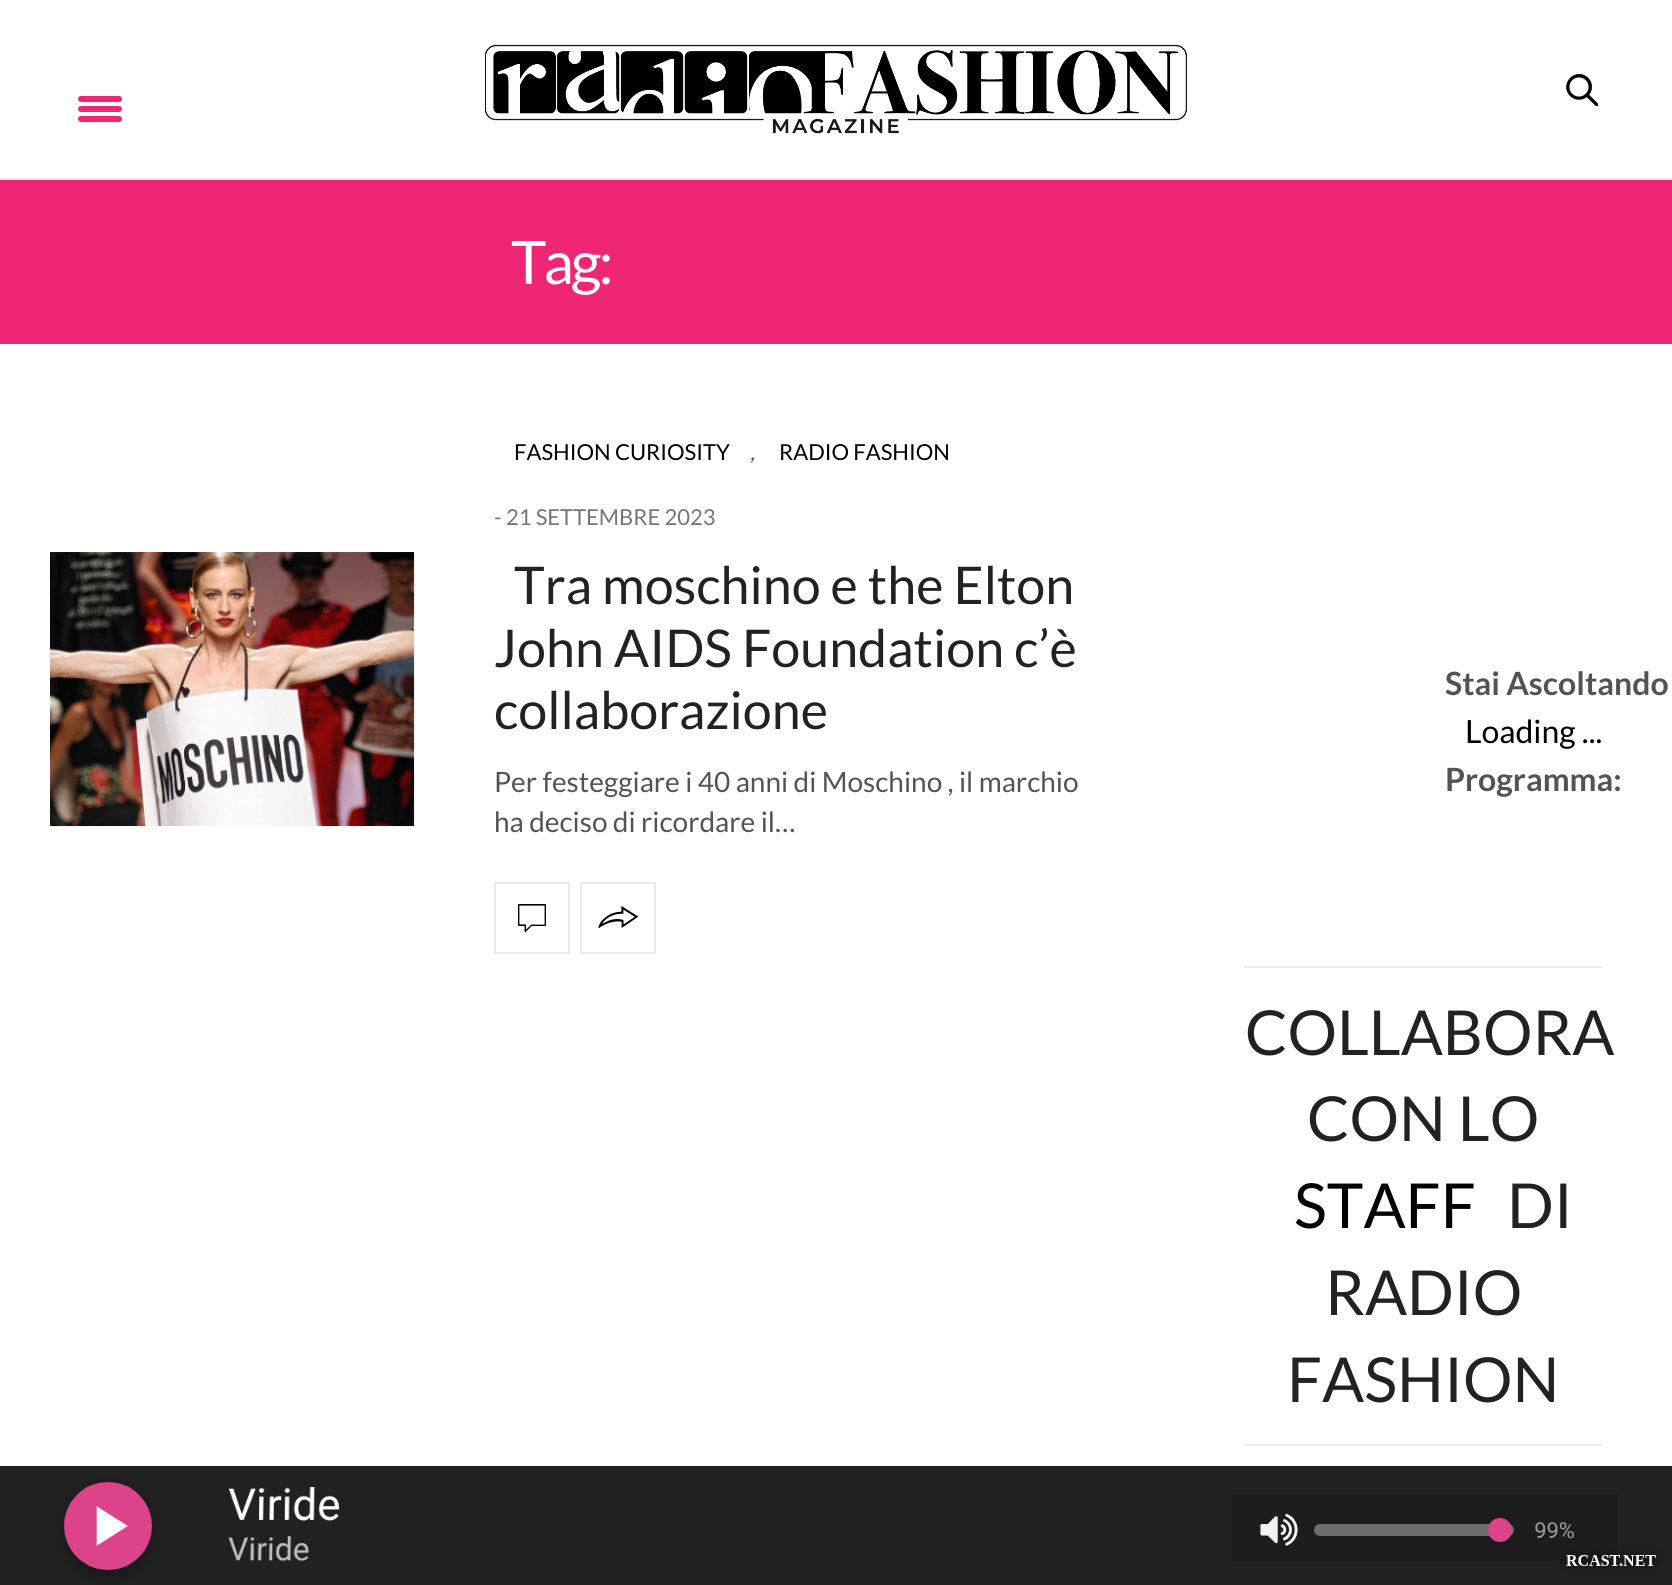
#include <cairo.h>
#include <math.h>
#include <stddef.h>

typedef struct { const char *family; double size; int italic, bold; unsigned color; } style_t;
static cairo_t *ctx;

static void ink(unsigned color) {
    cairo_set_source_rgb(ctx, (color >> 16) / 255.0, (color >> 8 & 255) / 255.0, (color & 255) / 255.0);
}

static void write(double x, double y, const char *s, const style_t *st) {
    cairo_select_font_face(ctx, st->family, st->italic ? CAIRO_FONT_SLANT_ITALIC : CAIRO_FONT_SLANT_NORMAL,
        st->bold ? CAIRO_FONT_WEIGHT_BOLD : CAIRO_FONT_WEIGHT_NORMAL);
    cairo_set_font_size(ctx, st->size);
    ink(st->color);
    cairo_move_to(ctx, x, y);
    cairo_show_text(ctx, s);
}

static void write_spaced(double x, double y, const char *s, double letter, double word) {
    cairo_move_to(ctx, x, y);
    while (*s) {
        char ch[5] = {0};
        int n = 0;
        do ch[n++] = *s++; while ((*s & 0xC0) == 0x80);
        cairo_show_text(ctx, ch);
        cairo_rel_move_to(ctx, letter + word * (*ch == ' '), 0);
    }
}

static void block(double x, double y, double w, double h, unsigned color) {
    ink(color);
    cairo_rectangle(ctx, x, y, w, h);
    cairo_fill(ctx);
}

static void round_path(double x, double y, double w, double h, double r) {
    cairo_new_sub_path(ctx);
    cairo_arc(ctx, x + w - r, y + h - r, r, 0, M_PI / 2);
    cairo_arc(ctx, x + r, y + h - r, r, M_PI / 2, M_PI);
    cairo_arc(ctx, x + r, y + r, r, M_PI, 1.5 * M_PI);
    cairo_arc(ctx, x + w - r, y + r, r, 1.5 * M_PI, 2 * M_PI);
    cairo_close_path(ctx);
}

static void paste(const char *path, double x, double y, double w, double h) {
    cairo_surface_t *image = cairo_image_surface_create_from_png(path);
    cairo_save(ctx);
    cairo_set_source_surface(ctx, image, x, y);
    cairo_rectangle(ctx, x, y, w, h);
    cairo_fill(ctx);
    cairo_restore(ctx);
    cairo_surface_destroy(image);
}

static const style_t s1 = {"Lato", 22, 0, 0, 0x000000};
static const style_t s2 = {"Lato", 22, 1, 0, 0x545353};
static const style_t s3 = {"Lato", 22, 0, 0, 0x767676};
static const style_t s4 = {"Lato", 52, 0, 0, 0x222222};
static const style_t s5 = {"Lato", 28, 0, 0, 0x545353};
static const style_t s6 = {"Lato", 32, 0, 1, 0x545353};
static const style_t s7 = {"Lato", 32, 0, 0, 0x000000};
static const style_t s8 = {"Lato", 62, 0, 0, 0x222222};
static const style_t s9 = {"Lato", 62, 0, 0, 0x000000};

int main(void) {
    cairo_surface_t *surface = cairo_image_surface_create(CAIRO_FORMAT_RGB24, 1672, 1585);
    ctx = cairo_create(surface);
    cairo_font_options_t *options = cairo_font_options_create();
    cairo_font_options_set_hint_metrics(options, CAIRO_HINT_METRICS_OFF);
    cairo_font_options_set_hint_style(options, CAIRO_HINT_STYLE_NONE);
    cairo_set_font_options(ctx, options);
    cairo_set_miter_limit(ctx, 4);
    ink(0xffffff);
    cairo_paint(ctx);
    block(0, 178, 1672, 2, 0xe6e6e6);
    paste("pic1.png", 484, 44, 704, 90);
    paste("pic2.png", 1566, 74, 32, 32);
    ink(0xef2673);
    round_path(78, 96, 44, 6, 3);
    cairo_fill(ctx);
    round_path(78, 106, 44, 6, 3);
    cairo_fill(ctx);
    round_path(78, 116, 44, 6, 3);
    cairo_fill(ctx);
    block(0, 180, 1672, 164, 0xef2673);
    cairo_select_font_face(ctx, "Lato", CAIRO_FONT_SLANT_NORMAL, CAIRO_FONT_WEIGHT_NORMAL);
    cairo_set_font_size(ctx, 60);
    ink(0xffffff);
    write_spaced(511, 284, "Tag:", -3, 0);
    paste("pic3.png", 50, 552, 365, 275);
    write(514, 460, "FASHION CURIOSITY", &s1);
    write(750, 460, ",", &s2);
    write(779, 460, "RADIO FASHION", &s1);
    write(494, 525, "- 21 SETTEMBRE 2023", &s3);
    write(514, 604, "Tra moschino e the Elton", &s4);
    write(494, 667, "John AIDS Foundation c’è", &s4);
    write(494, 729, "collaborazione", &s4);
    write(494, 792, "Per festeggiare i 40 anni di Moschino , il marchio", &s5);
    write(494, 832, "ha deciso di ricordare il…", &s5);
    cairo_rectangle(ctx, 495, 883, 74, 70);
    ink(0xe9e9e9);
    cairo_stroke(ctx);
    paste("pic4.png", 518, 904, 28, 28);
    cairo_rectangle(ctx, 581, 883, 74, 70);
    cairo_stroke(ctx);
    paste("pic5.png", 598, 906, 40, 22);
    write(1445, 695, "Stai Ascoltando", &s6);
    write(1465, 743, "Loading ...", &s7);
    write(1445, 791, "Programma:", &s6);
    block(1244, 966, 358, 2, 0xeaeaea);
    write(1245, 1055, "COLLABORA", &s8);
    write(1307, 1141, "CON LO", &s8);
    write(1294, 1228, "STAFF", &s9);
    write(1507, 1228, "DI", &s8);
    write(1325, 1315, "RADIO", &s8);
    write(1287, 1402, "FASHION", &s8);
    block(1244, 1444, 358, 2, 0xeaeaea);
    paste("pic6.png", 0, 1466, 1672, 119);
    cairo_surface_write_to_png(surface, "screenshot.png");
    cairo_font_options_destroy(options);
    cairo_destroy(ctx);
    cairo_surface_destroy(surface);
    return 0;
}
